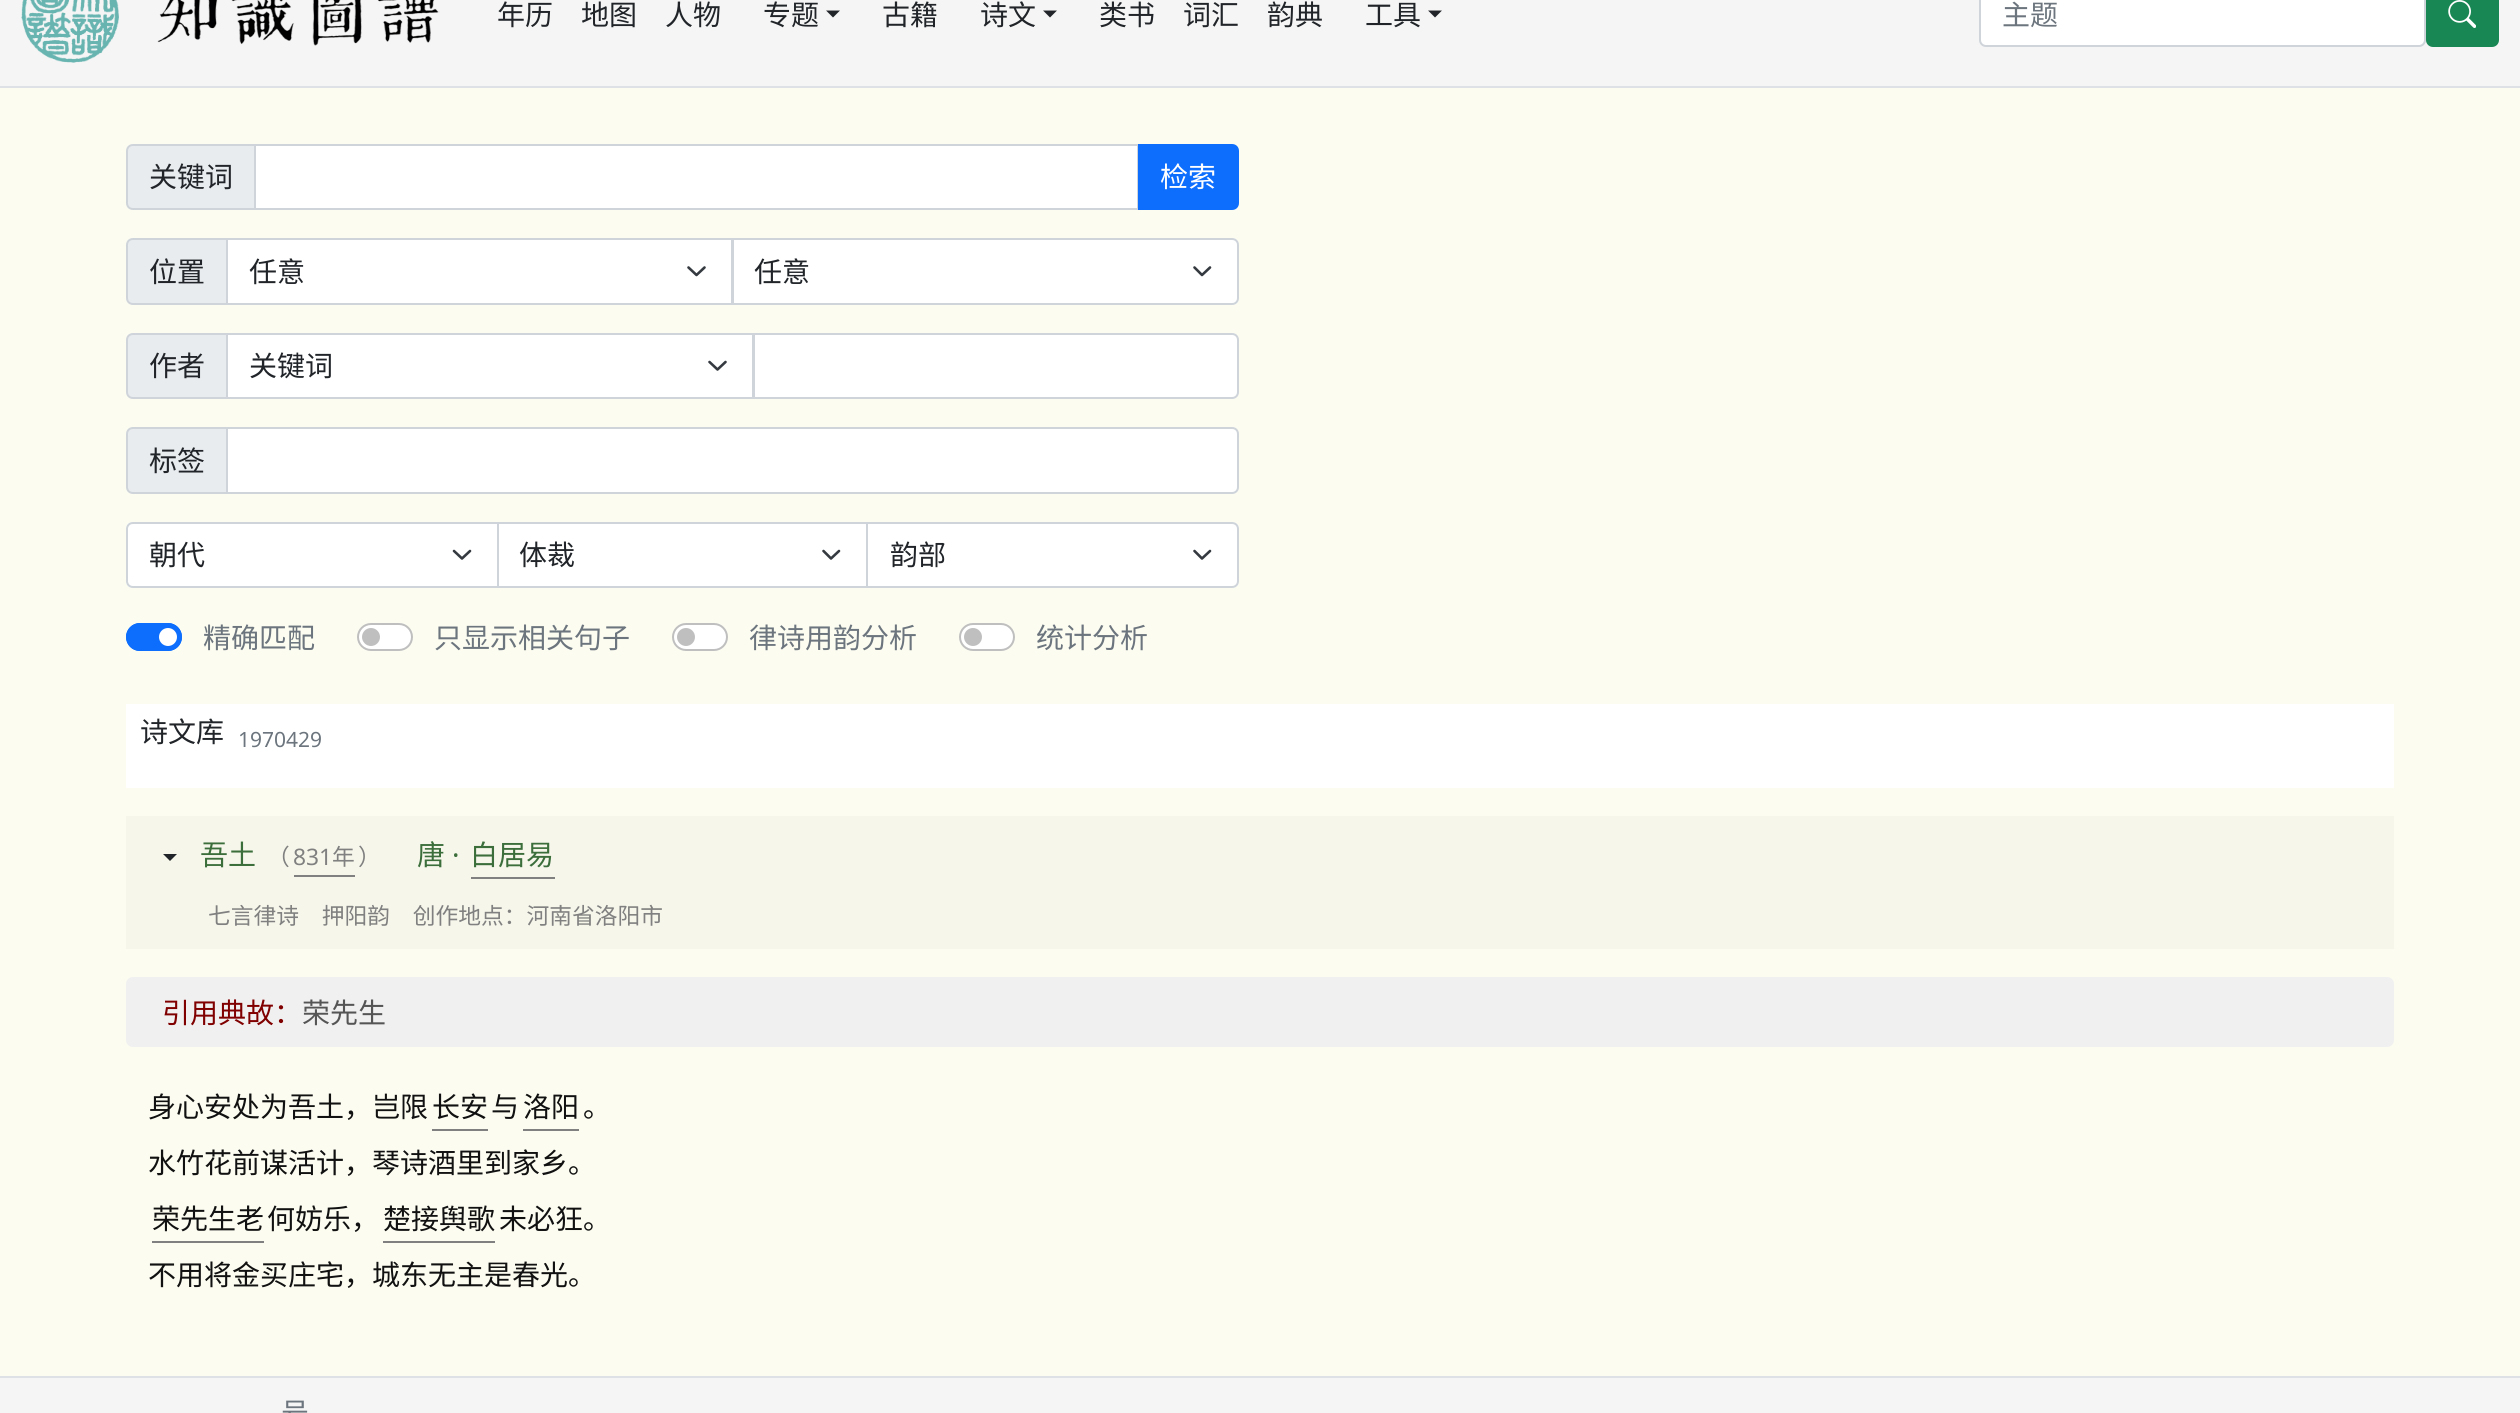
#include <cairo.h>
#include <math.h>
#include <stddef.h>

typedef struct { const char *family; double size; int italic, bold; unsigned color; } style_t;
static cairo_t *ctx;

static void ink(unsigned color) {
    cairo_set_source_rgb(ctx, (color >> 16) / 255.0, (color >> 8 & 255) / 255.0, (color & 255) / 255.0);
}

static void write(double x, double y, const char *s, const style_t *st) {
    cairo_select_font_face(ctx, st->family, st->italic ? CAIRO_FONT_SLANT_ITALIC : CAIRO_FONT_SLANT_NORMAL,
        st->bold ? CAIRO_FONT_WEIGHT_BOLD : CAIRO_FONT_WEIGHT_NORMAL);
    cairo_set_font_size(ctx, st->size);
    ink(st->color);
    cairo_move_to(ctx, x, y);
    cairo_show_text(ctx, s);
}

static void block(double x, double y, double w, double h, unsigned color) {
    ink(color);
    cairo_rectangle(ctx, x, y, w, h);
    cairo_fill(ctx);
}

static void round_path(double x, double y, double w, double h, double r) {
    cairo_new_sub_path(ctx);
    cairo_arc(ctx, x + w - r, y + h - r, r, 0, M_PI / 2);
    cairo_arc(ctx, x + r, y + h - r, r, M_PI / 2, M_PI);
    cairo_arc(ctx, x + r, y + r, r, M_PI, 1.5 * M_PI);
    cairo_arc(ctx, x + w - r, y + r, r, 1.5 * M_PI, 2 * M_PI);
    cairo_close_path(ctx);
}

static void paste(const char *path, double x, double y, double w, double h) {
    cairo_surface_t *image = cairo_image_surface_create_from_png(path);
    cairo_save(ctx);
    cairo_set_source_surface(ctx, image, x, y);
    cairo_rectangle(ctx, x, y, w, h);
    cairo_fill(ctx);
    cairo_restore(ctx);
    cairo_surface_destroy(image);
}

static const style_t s1 = {"Noto Sans CJK SC", 28, 0, 0, 0x212529};
static const style_t s2 = {"Noto Sans CJK SC", 28, 0, 0, 0x6c757d};
static const style_t s3 = {"Noto Sans CJK SC", 28, 0, 0, 0xffffff};
static const style_t s4 = {"Noto Sans", 21, 0, 0, 0x6c757d};
static const style_t s5 = {"Noto Sans CJK SC", 28, 0, 0, 0x3b6e3a};
static const style_t s6 = {"Noto Sans CJK SC", 22.75, 0, 0, 0x808080};
static const style_t s7 = {"Noto Sans", 22.75, 0, 0, 0x808080};
static const style_t s8 = {"Noto Sans", 28, 0, 0, 0x3b6e3a};
static const style_t s9 = {"Noto Sans CJK SC", 28, 0, 0, 0x800000};
static const style_t s10 = {"Noto Sans CJK SC", 28, 0, 0, 0x555555};
static const style_t s11 = {"Noto Sans CJK SC", 28, 0, 0, 0x111111};

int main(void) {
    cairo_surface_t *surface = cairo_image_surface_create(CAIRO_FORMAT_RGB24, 2520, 1413);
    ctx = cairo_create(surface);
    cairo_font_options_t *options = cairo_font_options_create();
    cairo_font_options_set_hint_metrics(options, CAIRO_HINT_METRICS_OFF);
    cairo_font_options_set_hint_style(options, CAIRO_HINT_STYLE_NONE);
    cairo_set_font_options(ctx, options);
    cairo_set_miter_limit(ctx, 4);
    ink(0xfcfcf1);
    cairo_paint(ctx);
    block(0, 0, 2520, 86, 0xf5f5f5);
    block(0, 86, 2520, 2, 0xdee2e6);
    paste("pic1.png", 21, 0, 98, 63);
    paste("pic2.png", 157, 0, 283, 46);
    write(497, 25, "年历", &s1);
    write(581, 25, "地图", &s1);
    write(665, 25, "人物", &s1);
    write(763, 25, "专题", &s1);
    cairo_new_path(ctx);
    cairo_move_to(ctx, 826, 10.5);
    cairo_line_to(ctx, 840, 10.5);
    cairo_line_to(ctx, 833, 17.5);
    cairo_close_path(ctx);
    cairo_fill(ctx);
    write(882, 25, "古籍", &s1);
    write(980, 25, "诗文", &s1);
    cairo_new_path(ctx);
    cairo_move_to(ctx, 1043, 10.5);
    cairo_line_to(ctx, 1057, 10.5);
    cairo_line_to(ctx, 1050, 17.5);
    cairo_close_path(ctx);
    cairo_fill(ctx);
    write(1099, 25, "类书", &s1);
    write(1183, 25, "词汇", &s1);
    write(1267, 25, "韵典", &s1);
    write(1365, 25, "工具", &s1);
    cairo_new_path(ctx);
    cairo_move_to(ctx, 1428, 10.5);
    cairo_line_to(ctx, 1442, 10.5);
    cairo_line_to(ctx, 1435, 17.5);
    cairo_close_path(ctx);
    cairo_fill(ctx);
    ink(0xffffff);
    round_path(1981, -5, 443, 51, 5);
    cairo_fill(ctx);
    round_path(1980, -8, 445, 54, 6);
    ink(0xced4da);
    cairo_stroke(ctx);
    write(2002, 25, "主题", &s2);
    ink(0x198754);
    round_path(2427, -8, 71, 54, 6);
    cairo_fill_preserve(ctx);
    cairo_stroke(ctx);
    paste("pic3.png", 2448, 0, 28, 28);
    ink(0xe9ecef);
    cairo_new_path(ctx);
    cairo_move_to(ctx, 133, 145);
    cairo_line_to(ctx, 255, 145);
    cairo_line_to(ctx, 255, 209);
    cairo_line_to(ctx, 133, 209);
    cairo_curve_to(ctx, 129.5, 209, 127, 206.5, 127, 203);
    cairo_line_to(ctx, 127, 151);
    cairo_curve_to(ctx, 127, 147.5, 129.5, 145, 133, 145);
    cairo_close_path(ctx);
    cairo_fill_preserve(ctx);
    ink(0xced4da);
    cairo_stroke(ctx);
    write(149, 187, "关键词", &s1);
    ink(0xffffff);
    cairo_rectangle(ctx, 255, 145, 883, 64);
    cairo_fill_preserve(ctx);
    ink(0xced4da);
    cairo_stroke(ctx);
    ink(0x0d6efd);
    cairo_new_path(ctx);
    cairo_move_to(ctx, 1139, 145);
    cairo_line_to(ctx, 1232, 145);
    cairo_curve_to(ctx, 1235.5, 145, 1238, 147.5, 1238, 151);
    cairo_line_to(ctx, 1238, 203);
    cairo_curve_to(ctx, 1238, 206.5, 1235.5, 209, 1232, 209);
    cairo_line_to(ctx, 1139, 209);
    cairo_close_path(ctx);
    cairo_fill_preserve(ctx);
    cairo_stroke(ctx);
    write(1160, 187, "检索", &s3);
    ink(0xe9ecef);
    cairo_new_path(ctx);
    cairo_move_to(ctx, 133, 239);
    cairo_line_to(ctx, 227, 239);
    cairo_line_to(ctx, 227, 304);
    cairo_line_to(ctx, 133, 304);
    cairo_curve_to(ctx, 129.5, 304, 127, 301.5, 127, 298);
    cairo_line_to(ctx, 127, 245);
    cairo_curve_to(ctx, 127, 241.5, 129.5, 239, 133, 239);
    cairo_close_path(ctx);
    cairo_fill_preserve(ctx);
    ink(0xced4da);
    cairo_stroke(ctx);
    write(149, 282, "位置", &s1);
    block(228, 240, 503, 63, 0xffffff);
    cairo_new_path(ctx);
    cairo_move_to(ctx, 688.5, 267.5);
    cairo_line_to(ctx, 696.5, 275);
    cairo_line_to(ctx, 704.5, 267.5);
    ink(0x343a40);
    cairo_set_line_width(ctx, 2.6);
    cairo_set_line_cap(ctx, CAIRO_LINE_CAP_ROUND);
    cairo_set_line_join(ctx, CAIRO_LINE_JOIN_ROUND);
    cairo_stroke(ctx);
    cairo_rectangle(ctx, 227, 239, 505, 65);
    ink(0xced4da);
    cairo_set_line_width(ctx, 2);
    cairo_set_line_cap(ctx, CAIRO_LINE_CAP_BUTT);
    cairo_set_line_join(ctx, CAIRO_LINE_JOIN_MITER);
    cairo_stroke(ctx);
    write(249, 282, "任意", &s1);
    ink(0xffffff);
    cairo_new_path(ctx);
    cairo_move_to(ctx, 732, 238);
    cairo_line_to(ctx, 1232, 238);
    cairo_curve_to(ctx, 1236, 238, 1239, 241, 1239, 245);
    cairo_line_to(ctx, 1239, 298);
    cairo_curve_to(ctx, 1239, 302, 1236, 305, 1232, 305);
    cairo_line_to(ctx, 732, 305);
    cairo_close_path(ctx);
    cairo_fill(ctx);
    cairo_new_path(ctx);
    cairo_move_to(ctx, 1194.5, 267.5);
    cairo_line_to(ctx, 1202, 275);
    cairo_line_to(ctx, 1210, 267.5);
    ink(0x343a40);
    cairo_set_line_width(ctx, 2.6);
    cairo_set_line_cap(ctx, CAIRO_LINE_CAP_ROUND);
    cairo_set_line_join(ctx, CAIRO_LINE_JOIN_ROUND);
    cairo_stroke(ctx);
    cairo_new_path(ctx);
    cairo_move_to(ctx, 733, 239);
    cairo_line_to(ctx, 1232, 239);
    cairo_curve_to(ctx, 1235.5, 239, 1238, 241.5, 1238, 245);
    cairo_line_to(ctx, 1238, 298);
    cairo_curve_to(ctx, 1238, 301.5, 1235.5, 304, 1232, 304);
    cairo_line_to(ctx, 733, 304);
    cairo_close_path(ctx);
    ink(0xced4da);
    cairo_set_line_width(ctx, 2);
    cairo_set_line_cap(ctx, CAIRO_LINE_CAP_BUTT);
    cairo_set_line_join(ctx, CAIRO_LINE_JOIN_MITER);
    cairo_stroke(ctx);
    write(754, 282, "任意", &s1);
    ink(0xe9ecef);
    cairo_new_path(ctx);
    cairo_move_to(ctx, 133, 334);
    cairo_line_to(ctx, 227, 334);
    cairo_line_to(ctx, 227, 398);
    cairo_line_to(ctx, 133, 398);
    cairo_curve_to(ctx, 129.5, 398, 127, 395.5, 127, 392);
    cairo_line_to(ctx, 127, 340);
    cairo_curve_to(ctx, 127, 336.5, 129.5, 334, 133, 334);
    cairo_close_path(ctx);
    cairo_fill_preserve(ctx);
    ink(0xced4da);
    cairo_stroke(ctx);
    write(149, 376, "作者", &s1);
    block(228, 335, 524, 62, 0xffffff);
    cairo_new_path(ctx);
    cairo_move_to(ctx, 709.5, 362);
    cairo_line_to(ctx, 717.5, 369.5);
    cairo_line_to(ctx, 725.5, 362);
    ink(0x343a40);
    cairo_set_line_width(ctx, 2.6);
    cairo_set_line_cap(ctx, CAIRO_LINE_CAP_ROUND);
    cairo_set_line_join(ctx, CAIRO_LINE_JOIN_ROUND);
    cairo_stroke(ctx);
    cairo_rectangle(ctx, 227, 334, 526, 64);
    ink(0xced4da);
    cairo_set_line_width(ctx, 2);
    cairo_set_line_cap(ctx, CAIRO_LINE_CAP_BUTT);
    cairo_set_line_join(ctx, CAIRO_LINE_JOIN_MITER);
    cairo_stroke(ctx);
    write(249, 376, "关键词", &s1);
    ink(0xffffff);
    cairo_new_path(ctx);
    cairo_move_to(ctx, 754, 334);
    cairo_line_to(ctx, 1232, 334);
    cairo_curve_to(ctx, 1235.5, 334, 1238, 336.5, 1238, 340);
    cairo_line_to(ctx, 1238, 392);
    cairo_curve_to(ctx, 1238, 395.5, 1235.5, 398, 1232, 398);
    cairo_line_to(ctx, 754, 398);
    cairo_close_path(ctx);
    cairo_fill_preserve(ctx);
    ink(0xced4da);
    cairo_stroke(ctx);
    ink(0xe9ecef);
    cairo_new_path(ctx);
    cairo_move_to(ctx, 133, 428);
    cairo_line_to(ctx, 227, 428);
    cairo_line_to(ctx, 227, 493);
    cairo_line_to(ctx, 133, 493);
    cairo_curve_to(ctx, 129.5, 493, 127, 490.5, 127, 487);
    cairo_line_to(ctx, 127, 434);
    cairo_curve_to(ctx, 127, 430.5, 129.5, 428, 133, 428);
    cairo_close_path(ctx);
    cairo_fill_preserve(ctx);
    ink(0xced4da);
    cairo_stroke(ctx);
    write(149, 471, "标签", &s1);
    ink(0xffffff);
    cairo_new_path(ctx);
    cairo_move_to(ctx, 227, 428);
    cairo_line_to(ctx, 1232, 428);
    cairo_curve_to(ctx, 1235.5, 428, 1238, 430.5, 1238, 434);
    cairo_line_to(ctx, 1238, 487);
    cairo_curve_to(ctx, 1238, 490.5, 1235.5, 493, 1232, 493);
    cairo_line_to(ctx, 227, 493);
    cairo_close_path(ctx);
    cairo_fill_preserve(ctx);
    ink(0xced4da);
    cairo_stroke(ctx);
    ink(0xffffff);
    cairo_new_path(ctx);
    cairo_move_to(ctx, 133, 522);
    cairo_line_to(ctx, 499, 522);
    cairo_line_to(ctx, 499, 588);
    cairo_line_to(ctx, 133, 588);
    cairo_curve_to(ctx, 129, 588, 126, 585, 126, 581);
    cairo_line_to(ctx, 126, 529);
    cairo_curve_to(ctx, 126, 525, 129, 522, 133, 522);
    cairo_close_path(ctx);
    cairo_fill(ctx);
    cairo_new_path(ctx);
    cairo_move_to(ctx, 454, 551);
    cairo_line_to(ctx, 462, 558.5);
    cairo_line_to(ctx, 470, 551);
    ink(0x343a40);
    cairo_set_line_width(ctx, 2.6);
    cairo_set_line_cap(ctx, CAIRO_LINE_CAP_ROUND);
    cairo_set_line_join(ctx, CAIRO_LINE_JOIN_ROUND);
    cairo_stroke(ctx);
    cairo_new_path(ctx);
    cairo_move_to(ctx, 133, 523);
    cairo_line_to(ctx, 498, 523);
    cairo_line_to(ctx, 498, 587);
    cairo_line_to(ctx, 133, 587);
    cairo_curve_to(ctx, 129.5, 587, 127, 584.5, 127, 581);
    cairo_line_to(ctx, 127, 529);
    cairo_curve_to(ctx, 127, 525.5, 129.5, 523, 133, 523);
    cairo_close_path(ctx);
    ink(0xced4da);
    cairo_set_line_width(ctx, 2);
    cairo_set_line_cap(ctx, CAIRO_LINE_CAP_BUTT);
    cairo_set_line_join(ctx, CAIRO_LINE_JOIN_MITER);
    cairo_stroke(ctx);
    write(149, 565, "朝代", &s1);
    block(499, 524, 367, 62, 0xffffff);
    cairo_new_path(ctx);
    cairo_move_to(ctx, 823.5, 551);
    cairo_line_to(ctx, 831, 558.5);
    cairo_line_to(ctx, 839, 551);
    ink(0x343a40);
    cairo_set_line_width(ctx, 2.6);
    cairo_set_line_cap(ctx, CAIRO_LINE_CAP_ROUND);
    cairo_set_line_join(ctx, CAIRO_LINE_JOIN_ROUND);
    cairo_stroke(ctx);
    cairo_rectangle(ctx, 498, 523, 369, 64);
    ink(0xced4da);
    cairo_set_line_width(ctx, 2);
    cairo_set_line_cap(ctx, CAIRO_LINE_CAP_BUTT);
    cairo_set_line_join(ctx, CAIRO_LINE_JOIN_MITER);
    cairo_stroke(ctx);
    write(519, 565, "体裁", &s1);
    ink(0xffffff);
    cairo_new_path(ctx);
    cairo_move_to(ctx, 866, 522);
    cairo_line_to(ctx, 1232, 522);
    cairo_curve_to(ctx, 1236, 522, 1239, 525, 1239, 529);
    cairo_line_to(ctx, 1239, 581);
    cairo_curve_to(ctx, 1239, 585, 1236, 588, 1232, 588);
    cairo_line_to(ctx, 866, 588);
    cairo_close_path(ctx);
    cairo_fill(ctx);
    cairo_new_path(ctx);
    cairo_move_to(ctx, 1194.5, 551);
    cairo_line_to(ctx, 1202, 558.5);
    cairo_line_to(ctx, 1210, 551);
    ink(0x343a40);
    cairo_set_line_width(ctx, 2.6);
    cairo_set_line_cap(ctx, CAIRO_LINE_CAP_ROUND);
    cairo_set_line_join(ctx, CAIRO_LINE_JOIN_ROUND);
    cairo_stroke(ctx);
    cairo_new_path(ctx);
    cairo_move_to(ctx, 867, 523);
    cairo_line_to(ctx, 1232, 523);
    cairo_curve_to(ctx, 1235.5, 523, 1238, 525.5, 1238, 529);
    cairo_line_to(ctx, 1238, 581);
    cairo_curve_to(ctx, 1238, 584.5, 1235.5, 587, 1232, 587);
    cairo_line_to(ctx, 867, 587);
    cairo_close_path(ctx);
    ink(0xced4da);
    cairo_set_line_width(ctx, 2);
    cairo_set_line_cap(ctx, CAIRO_LINE_CAP_BUTT);
    cairo_set_line_join(ctx, CAIRO_LINE_JOIN_MITER);
    cairo_stroke(ctx);
    write(890, 565, "韵部", &s1);
    ink(0x0d6efd);
    round_path(126, 623, 56, 28, 14);
    cairo_fill(ctx);
    ink(0xffffff);
    cairo_arc(ctx, 168, 637, 9, 0, 2 * M_PI);
    cairo_fill(ctx);
    round_path(127, 624, 54, 26, 13);
    ink(0x0d6efd);
    cairo_stroke(ctx);
    write(203, 648, "精确匹配", &s2);
    ink(0xffffff);
    round_path(357, 623, 56, 28, 14);
    cairo_fill(ctx);
    ink(0xbfbfbf);
    cairo_arc(ctx, 371, 637, 9, 0, 2 * M_PI);
    cairo_fill(ctx);
    round_path(358, 624, 54, 26, 13);
    cairo_set_source_rgba(ctx, 0, 0, 0, 0.25);
    cairo_stroke(ctx);
    write(434, 648, "只显示相关句子", &s2);
    ink(0xffffff);
    round_path(672, 623, 56, 28, 14);
    cairo_fill(ctx);
    ink(0xbfbfbf);
    cairo_arc(ctx, 686, 637, 9, 0, 2 * M_PI);
    cairo_fill(ctx);
    round_path(673, 624, 54, 26, 13);
    cairo_set_source_rgba(ctx, 0, 0, 0, 0.25);
    cairo_stroke(ctx);
    write(749, 648, "律诗用韵分析", &s2);
    ink(0xffffff);
    round_path(959, 623, 56, 28, 14);
    cairo_fill(ctx);
    ink(0xbfbfbf);
    cairo_arc(ctx, 973, 637, 9, 0, 2 * M_PI);
    cairo_fill(ctx);
    round_path(960, 624, 54, 26, 13);
    cairo_set_source_rgba(ctx, 0, 0, 0, 0.25);
    cairo_stroke(ctx);
    write(1036, 648, "统计分析", &s2);
    block(126, 704, 2268, 84, 0xffffff);
    write(140, 742, "诗文库", &s1);
    write(238, 747, "1970429", &s4);
    block(126, 816, 2268, 133, 0xf6f6eb);
    ink(0x212529);
    cairo_new_path(ctx);
    cairo_move_to(ctx, 163, 854);
    cairo_line_to(ctx, 177, 854);
    cairo_line_to(ctx, 170, 861);
    cairo_close_path(ctx);
    cairo_fill(ctx);
    write(200, 865, "吾土", &s5);
    write(267, 865, "（", &s6);
    write(293, 865, "831", &s7);
    block(294, 875, 61, 2, 0x808080);
    write(332, 865, "年", &s6);
    write(358, 865, "）", &s6);
    write(417, 865, "唐", &s5);
    write(452, 865, "·", &s8);
    write(470, 865, "白居易", &s5);
    block(471, 877, 84, 2, 0x808080);
    write(208, 924, "七言律诗　押阳韵　创作地点：河南省洛阳市", &s6);
    ink(0xf0f0f0);
    round_path(126, 977, 2268, 70, 7);
    cairo_fill(ctx);
    write(162, 1023, "引用典故：", &s9);
    write(302, 1023, "荣先生", &s10);
    write(148, 1117, "身心安处为吾土，岂限", &s11);
    write(432, 1117, "长安", &s11);
    block(432, 1129, 56, 2, 0x808080);
    write(491, 1117, "与", &s11);
    write(523, 1117, "洛阳", &s11);
    block(523, 1129, 56, 2, 0x808080);
    write(583, 1117, "。", &s11);
    write(148, 1173, "水竹花前谋活计，琴诗酒里到家乡。", &s11);
    write(152, 1229, "荣先生老", &s11);
    block(152, 1241, 112, 2, 0x808080);
    write(267, 1229, "何妨乐，", &s11);
    write(383, 1229, "楚接舆歌", &s11);
    block(383, 1241, 112, 2, 0x808080);
    write(499, 1229, "未必狂。", &s11);
    write(148, 1285, "不用将金买庄宅，城东无主是春光。", &s11);
    block(0, 1378, 2520, 35, 0xf5f5f5);
    block(0, 1376, 2520, 2, 0xdee2e6);
    write(281, 1423, "号", &s2);
    cairo_surface_write_to_png(surface, "screenshot.png");
    cairo_font_options_destroy(options);
    cairo_destroy(ctx);
    cairo_surface_destroy(surface);
    return 0;
}
